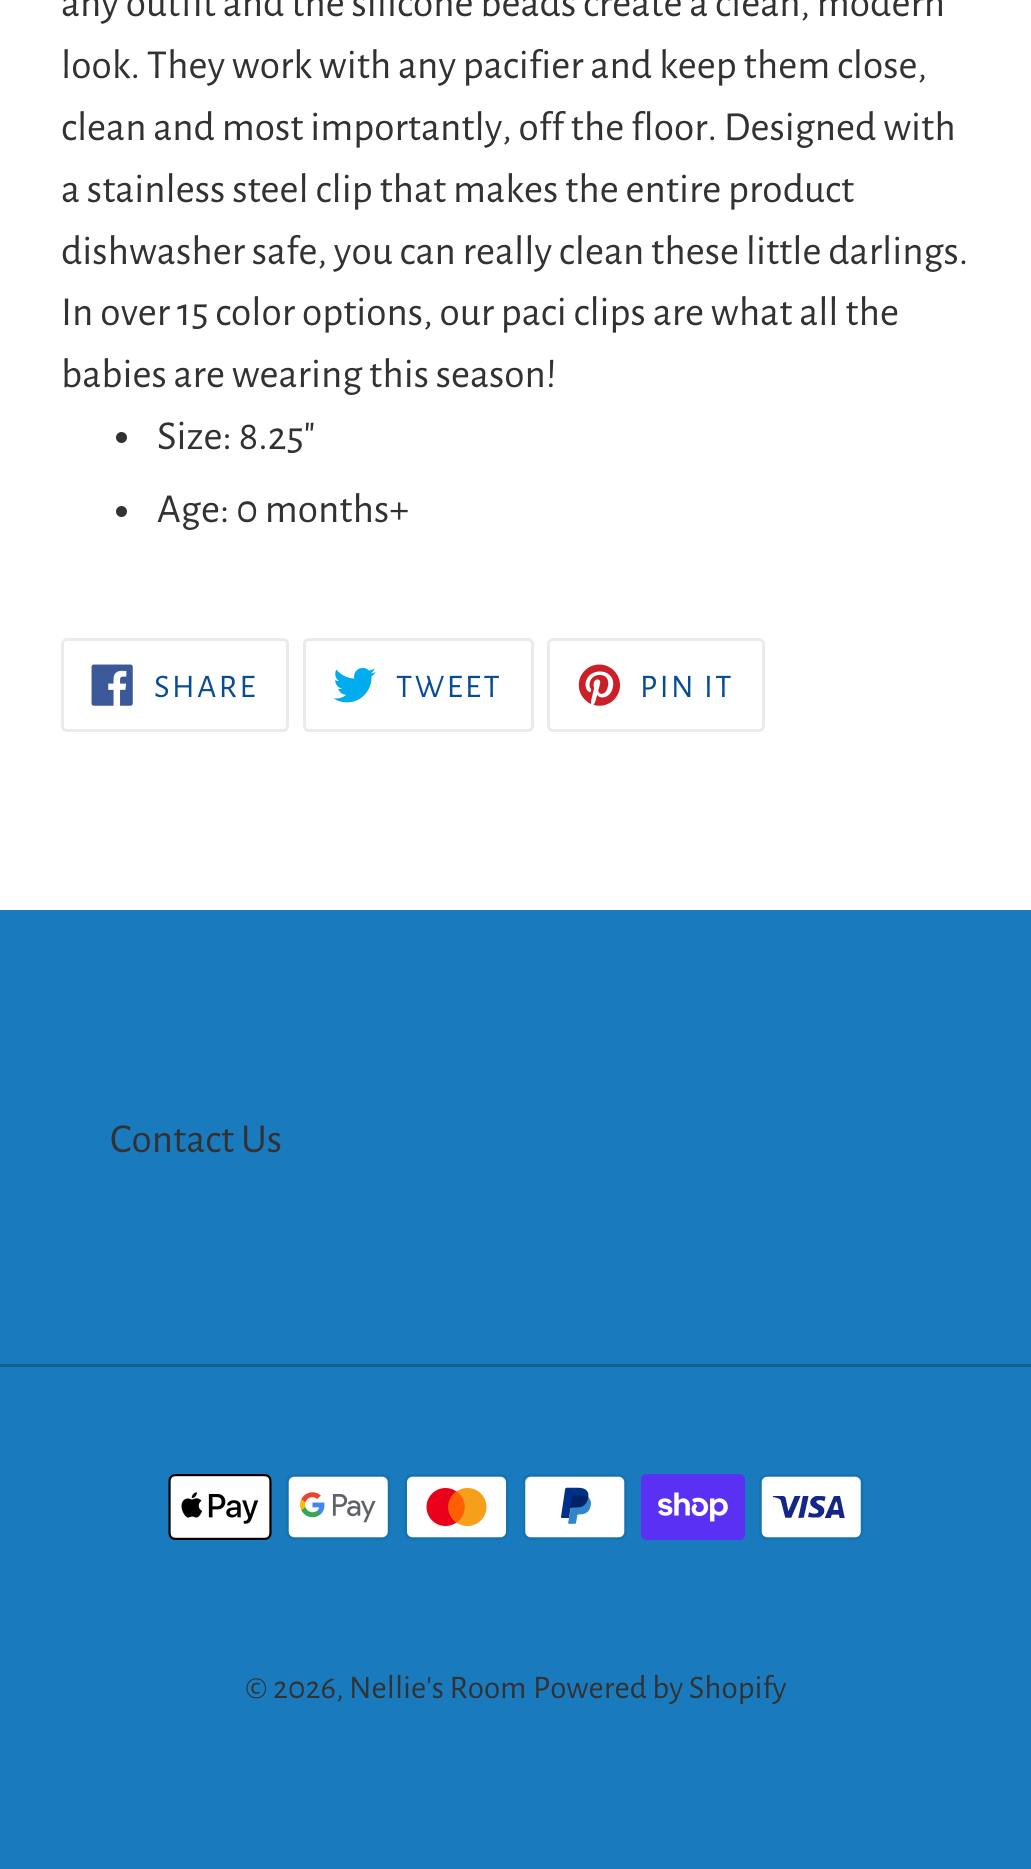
#include <cairo.h>
#include <math.h>
#include <stddef.h>

typedef struct { const char *family; double size; int italic, bold; unsigned color; } style_t;
static cairo_t *ctx;

static void ink(unsigned color) {
    cairo_set_source_rgb(ctx, (color >> 16) / 255.0, (color >> 8 & 255) / 255.0, (color & 255) / 255.0);
}

static void write(double x, double y, const char *s, const style_t *st) {
    cairo_select_font_face(ctx, st->family, st->italic ? CAIRO_FONT_SLANT_ITALIC : CAIRO_FONT_SLANT_NORMAL,
        st->bold ? CAIRO_FONT_WEIGHT_BOLD : CAIRO_FONT_WEIGHT_NORMAL);
    cairo_set_font_size(ctx, st->size);
    ink(st->color);
    cairo_move_to(ctx, x, y);
    cairo_show_text(ctx, s);
}

static void write_spaced(double x, double y, const char *s, double letter, double word) {
    cairo_move_to(ctx, x, y);
    while (*s) {
        char ch[5] = {0};
        int n = 0;
        do ch[n++] = *s++; while ((*s & 0xC0) == 0x80);
        cairo_show_text(ctx, ch);
        cairo_rel_move_to(ctx, letter + word * (*ch == ' '), 0);
    }
}

static void block(double x, double y, double w, double h, unsigned color) {
    ink(color);
    cairo_rectangle(ctx, x, y, w, h);
    cairo_fill(ctx);
}

static void round_path(double x, double y, double w, double h, double r) {
    cairo_new_sub_path(ctx);
    cairo_arc(ctx, x + w - r, y + h - r, r, 0, M_PI / 2);
    cairo_arc(ctx, x + r, y + h - r, r, M_PI / 2, M_PI);
    cairo_arc(ctx, x + r, y + r, r, M_PI, 1.5 * M_PI);
    cairo_arc(ctx, x + w - r, y + r, r, 1.5 * M_PI, 2 * M_PI);
    cairo_close_path(ctx);
}

static void paste(const char *path, double x, double y, double w, double h) {
    cairo_surface_t *image = cairo_image_surface_create_from_png(path);
    cairo_save(ctx);
    cairo_set_source_surface(ctx, image, x, y);
    cairo_rectangle(ctx, x, y, w, h);
    cairo_fill(ctx);
    cairo_restore(ctx);
    cairo_surface_destroy(image);
}

static const style_t s1 = {"Alegreya Sans", 41.25, 0, 0, 0x333232};
static const style_t s2 = {"Alegreya Sans", 33, 0, 0, 0x333232};

int main(void) {
    cairo_surface_t *surface = cairo_image_surface_create(CAIRO_FORMAT_RGB24, 1031, 1869);
    ctx = cairo_create(surface);
    cairo_font_options_t *options = cairo_font_options_create();
    cairo_font_options_set_hint_metrics(options, CAIRO_HINT_METRICS_OFF);
    cairo_font_options_set_hint_style(options, CAIRO_HINT_STYLE_NONE);
    cairo_set_font_options(ctx, options);
    cairo_set_miter_limit(ctx, 4);
    ink(0xffffff);
    cairo_paint(ctx);
    write(61, 16, "any outfit and the silicone beads create a clean, modern", &s1);
    write(61, 78, "look. They work with any pacifier and keep them close,", &s1);
    write(61, 140, "clean and most importantly, off the floor. Designed with", &s1);
    write(61, 202, "a stainless steel clip that makes the entire product", &s1);
    write(61, 264, "dishwasher safe, you can really clean these little darlings.", &s1);
    write(61, 325, "In over 15 color options, our paci clips are what all the", &s1);
    write(61, 387, "babies are wearing this season!", &s1);
    cairo_new_path(ctx);
    cairo_arc(ctx, 121.5, 437.5, 5.5, 0, 2 * M_PI);
    cairo_fill(ctx);
    write(157, 449, "Size: 8.25\"", &s1);
    cairo_new_path(ctx);
    cairo_arc(ctx, 121.5, 511.5, 5.5, 0, 2 * M_PI);
    cairo_fill(ctx);
    write(157, 522, "Age: 0 months+", &s1);
    round_path(62.5, 639.5, 225, 91, 4.5);
    ink(0xebebeb);
    cairo_set_line_width(ctx, 3);
    cairo_stroke(ctx);
    paste("pic1.png", 91, 664, 42, 42);
    cairo_set_font_size(ctx, 33);
    ink(0x084d93);
    write_spaced(154, 697, "SHARE", 2.5, 0);
    round_path(304.5, 639.5, 228, 91, 4.5);
    ink(0xebebeb);
    cairo_stroke(ctx);
    paste("pic2.png", 333, 667, 43, 36);
    ink(0x084d93);
    write_spaced(396, 697, "TWEET", 2.5, 0);
    round_path(548.5, 639.5, 215, 91, 4.5);
    ink(0xebebeb);
    cairo_stroke(ctx);
    paste("pic3.png", 578, 664, 42, 42);
    ink(0x084d93);
    write_spaced(640, 697, "PIN IT", 2.5, 0);
    block(0, 910, 1031, 959, 0x197bbd);
    write(110, 1152, "Contact Us", &s1);
    block(0, 1364, 1031, 3, 0x135e90);
    paste("pic4.png", 168, 1474, 104, 66);
    paste("pic5.png", 286, 1474, 105, 66);
    paste("pic6.png", 404, 1474, 105, 66);
    paste("pic7.png", 523, 1474, 104, 66);
    paste("pic8.png", 641, 1474, 104, 66);
    paste("pic9.png", 759, 1474, 105, 66);
    write(245, 1698, "© 2026, Nellie's Room", &s2);
    write(533, 1698, "Powered by Shopify", &s2);
    cairo_surface_write_to_png(surface, "screenshot.png");
    cairo_font_options_destroy(options);
    cairo_destroy(ctx);
    cairo_surface_destroy(surface);
    return 0;
}
